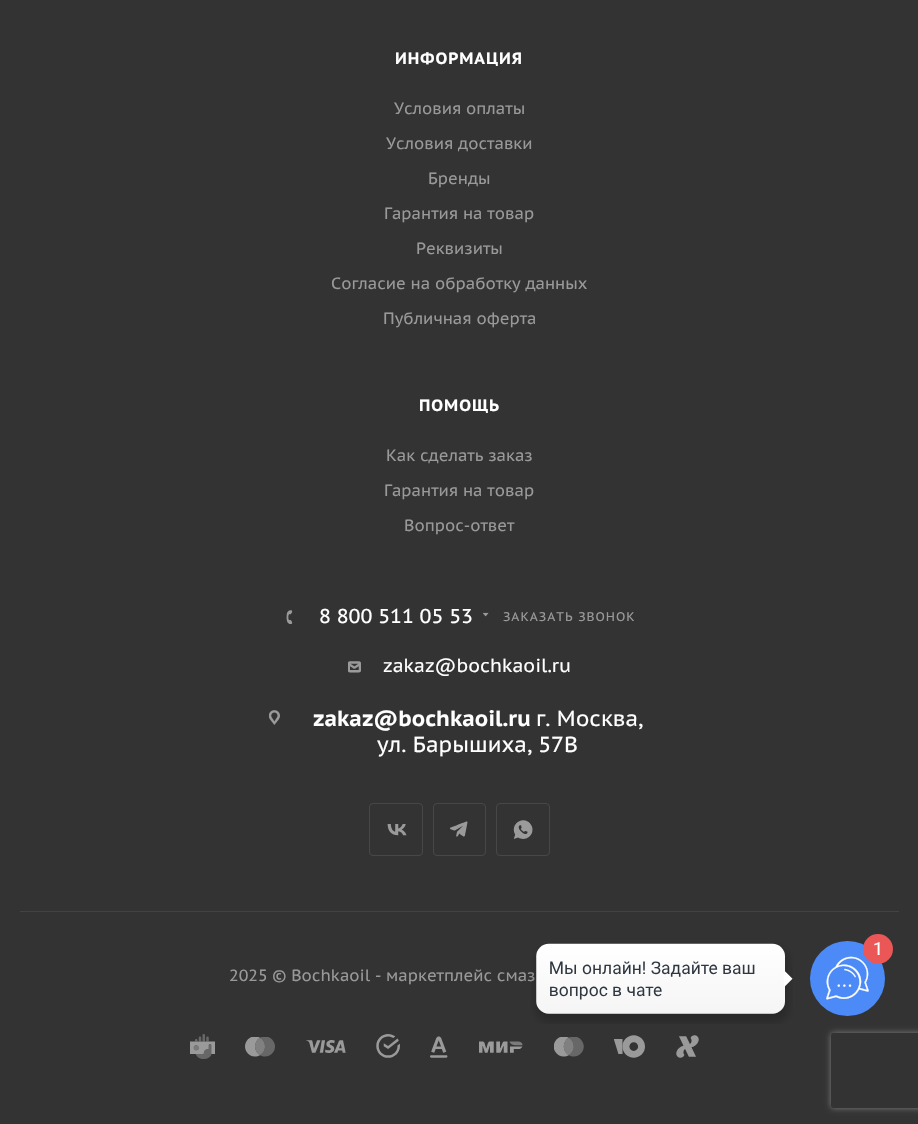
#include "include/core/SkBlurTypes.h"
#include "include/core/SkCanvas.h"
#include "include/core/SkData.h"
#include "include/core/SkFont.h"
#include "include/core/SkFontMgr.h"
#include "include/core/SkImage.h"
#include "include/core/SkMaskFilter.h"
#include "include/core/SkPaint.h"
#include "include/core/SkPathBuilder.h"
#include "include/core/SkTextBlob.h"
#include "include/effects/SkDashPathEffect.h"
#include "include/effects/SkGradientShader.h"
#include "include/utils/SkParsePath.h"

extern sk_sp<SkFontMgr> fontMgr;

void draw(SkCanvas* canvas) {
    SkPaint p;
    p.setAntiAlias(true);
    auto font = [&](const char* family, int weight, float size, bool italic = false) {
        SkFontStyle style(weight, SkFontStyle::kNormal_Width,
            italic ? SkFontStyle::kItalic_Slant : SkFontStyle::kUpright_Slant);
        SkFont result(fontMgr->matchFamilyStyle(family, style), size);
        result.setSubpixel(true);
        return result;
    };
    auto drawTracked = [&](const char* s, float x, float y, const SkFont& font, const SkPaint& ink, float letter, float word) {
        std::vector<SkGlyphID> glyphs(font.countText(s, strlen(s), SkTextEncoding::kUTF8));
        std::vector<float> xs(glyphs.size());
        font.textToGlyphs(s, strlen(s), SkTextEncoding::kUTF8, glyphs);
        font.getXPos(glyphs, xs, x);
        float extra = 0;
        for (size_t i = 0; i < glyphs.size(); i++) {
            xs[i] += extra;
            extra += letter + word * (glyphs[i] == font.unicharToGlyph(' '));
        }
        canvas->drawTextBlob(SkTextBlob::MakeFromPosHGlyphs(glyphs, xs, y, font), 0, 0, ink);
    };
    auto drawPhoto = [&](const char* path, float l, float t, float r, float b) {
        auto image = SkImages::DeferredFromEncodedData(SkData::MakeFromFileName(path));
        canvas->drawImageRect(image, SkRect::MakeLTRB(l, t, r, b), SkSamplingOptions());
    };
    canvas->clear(0xFF333333);
    auto font1 = font("PT Sans Caption", 700, 16.25f);
    p.setColor(0xFFFFFFFF);
    drawTracked("ИНФОРМАЦИЯ", 395, 64, font1, p, 1, 0);
    auto font2 = font("PT Sans Caption", 400, 16.25f);
    p.setColor(0xFF999999);
    {
        const struct { const char* s; float x, y; } items[] = {
            {"Условия оплаты", 394, 114},
            {"Условия доставки", 386, 149},
            {"Бренды", 428, 184},
            {"Гарантия на товар", 384, 219},
            {"Реквизиты", 416, 254},
            {"Согласие на обработку данных", 331, 289},
            {"Публичная оферта", 383, 324},
        };
        for (auto [s, x, y] : items) {
            canvas->drawString(s, x, y, font2, p);
        }
    }
    p.setColor(0xFFFFFFFF);
    drawTracked("ПОМОЩЬ", 419, 411, font1, p, 1, 0);
    p.setColor(0xFF999999);
    {
        const struct { const char* s; float x, y; } items[] = {
            {"Как сделать заказ", 386, 461},
            {"Гарантия на товар", 384, 496},
            {"Вопрос-ответ", 404, 531},
        };
        for (auto [s, x, y] : items) {
            canvas->drawString(s, x, y, font2, p);
        }
    }
    drawPhoto("media/1.png", 286, 610, 293, 624);
    auto font3 = font("PT Sans Caption", 400, 20);
    p.setColor(0xFFFFFFFF);
    canvas->drawString("8 800 511 05 53", 319, 623, font3, p);
    drawPhoto("media/2.png", 483, 612, 489, 617);
    auto font4 = font("PT Sans Caption", 400, 12.5f);
    p.setColor(0xFF999999);
    drawTracked("ЗАКАЗАТЬ ЗВОНОК", 503, 621, font4, p, 1, 0);
    drawPhoto("media/3.png", 348, 661, 361, 673);
    auto font5 = font("PT Sans Caption", 400, 18.75f);
    p.setColor(0xFFFFFFFF);
    canvas->drawString("zakaz@bochkaoil.ru", 383, 672, font5, p);
    drawPhoto("media/4.png", 269, 710, 280, 725);
    auto font6 = font("PT Sans Caption", 700, 21.75f);
    canvas->drawString("zakaz@bochkaoil.ru", 313, 726, font6, p);
    auto font7 = font("PT Sans Caption", 400, 21.75f);
    canvas->drawString("г. Москва,", 536, 726, font7, p);
    canvas->drawString("ул. Барышиха, 57В", 377, 752, font7, p);
    drawPhoto("media/5.png", 387, 824, 407, 836);
    p.setStyle(SkPaint::kStroke_Style);
    p.setStrokeWidth(1);
    p.setColor(0xFF474747);
    canvas->drawRoundRect(SkRect::MakeLTRB(369.5f, 803.5f, 422.5f, 855.5f), 3.5f, 3.5f, p);
    drawPhoto("media/6.png", 450, 821, 468, 837);
    canvas->drawRoundRect(SkRect::MakeLTRB(433.5f, 803.5f, 485.5f, 855.5f), 3.5f, 3.5f, p);
    drawPhoto("media/7.png", 513, 820, 533, 839);
    canvas->drawRoundRect(SkRect::MakeLTRB(496.5f, 803.5f, 549.5f, 855.5f), 3.5f, 3.5f, p);
    p.setStyle(SkPaint::kFill_Style);
    p.setColor(0xFF434343);
    canvas->drawRect(SkRect::MakeLTRB(20, 911, 899, 912), p);
    p.setColor(0xFF999999);
    canvas->drawString("2025 © Bochkaoil - маркетплейс смаз", 229, 981, font2, p);
    drawPhoto("media/8.png", 190, 1034, 215, 1059);
    drawPhoto("media/9.png", 245, 1037, 275, 1057);
    drawPhoto("media/10.png", 306, 1040, 346, 1053);
    drawPhoto("media/11.png", 376, 1034, 400, 1058);
    drawPhoto("media/12.png", 430, 1036, 448, 1058);
    drawPhoto("media/13.png", 479, 1041, 523, 1053);
    drawPhoto("media/14.png", 554, 1037, 584, 1057);
    drawPhoto("media/15.png", 614, 1035, 645, 1058);
    drawPhoto("media/16.png", 676, 1035, 699, 1058);
    p.setColor(0xFF4C8BF7);
    canvas->drawCircle(847.5f, 978.5f, 37.5f, p);
    drawPhoto("media/17.png", 530, 943, 793, 1024);
    drawPhoto("media/18.png", 826, 956, 869, 1000);
    p.setColor(0xFFEB5757);
    canvas->drawCircle(878, 949, 15, p);
    auto font8 = font("Roboto", 400, 18);
    p.setColor(0xFFFFFFFF);
    canvas->drawString("1", 873, 955, font8, p);
    canvas->save();
    canvas->clipPath(SkPathBuilder(SkPathFillType::kEvenOdd).moveTo(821, 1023).lineTo(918, 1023).lineTo(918, 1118).lineTo(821, 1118).close().moveTo(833.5f, 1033).lineTo(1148.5f, 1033).cubicTo(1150, 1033, 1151, 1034, 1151, 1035.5f).lineTo(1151, 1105.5f).cubicTo(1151, 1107, 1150, 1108, 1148.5f, 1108).lineTo(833.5f, 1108).cubicTo(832, 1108, 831, 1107, 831, 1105.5f).lineTo(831, 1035.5f).cubicTo(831, 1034, 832, 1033, 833.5f, 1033).close().detach(), true);
    p.setColor(0xFF808080);
    p.setMaskFilter(SkMaskFilter::MakeBlur(kNormal_SkBlurStyle, 3));
    canvas->drawRoundRect(SkRect::MakeLTRB(831, 1033, 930, 1108), 2.5f, 2.5f, p);
    p.setMaskFilter(nullptr);
    canvas->restore();
}
